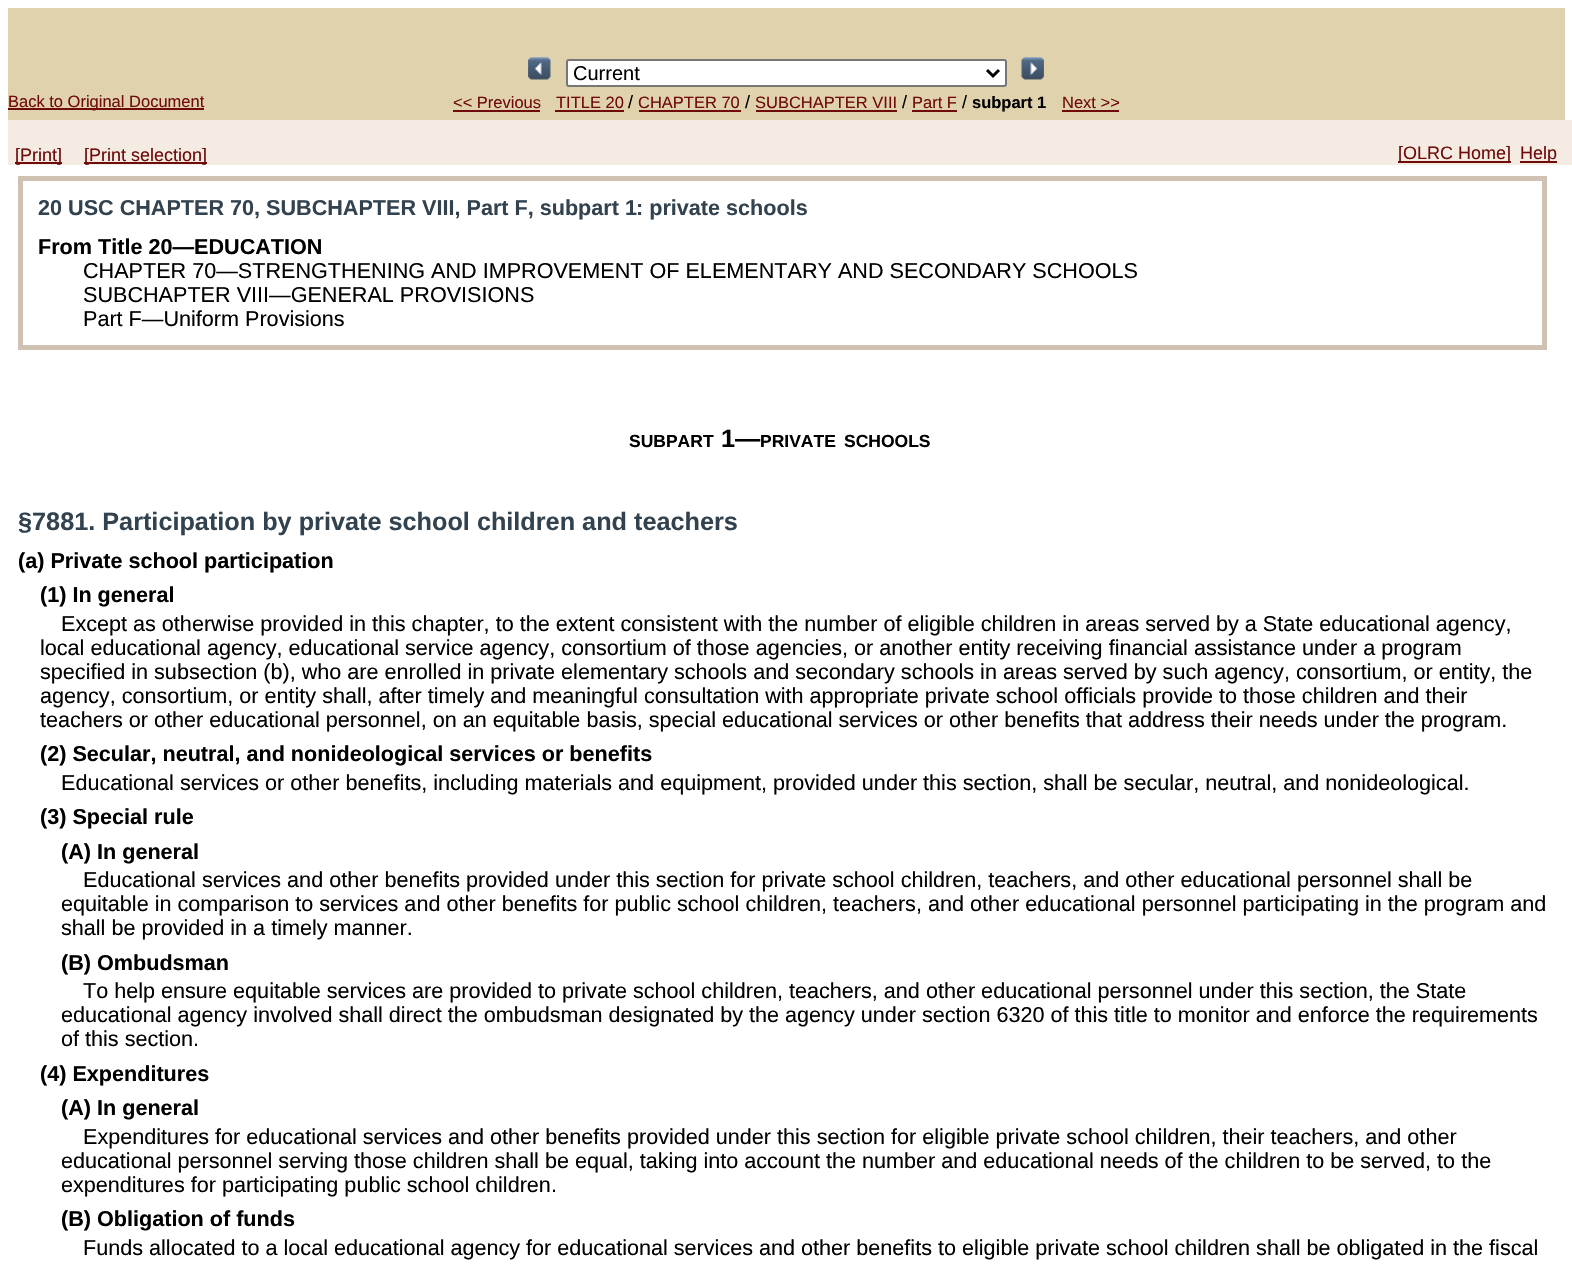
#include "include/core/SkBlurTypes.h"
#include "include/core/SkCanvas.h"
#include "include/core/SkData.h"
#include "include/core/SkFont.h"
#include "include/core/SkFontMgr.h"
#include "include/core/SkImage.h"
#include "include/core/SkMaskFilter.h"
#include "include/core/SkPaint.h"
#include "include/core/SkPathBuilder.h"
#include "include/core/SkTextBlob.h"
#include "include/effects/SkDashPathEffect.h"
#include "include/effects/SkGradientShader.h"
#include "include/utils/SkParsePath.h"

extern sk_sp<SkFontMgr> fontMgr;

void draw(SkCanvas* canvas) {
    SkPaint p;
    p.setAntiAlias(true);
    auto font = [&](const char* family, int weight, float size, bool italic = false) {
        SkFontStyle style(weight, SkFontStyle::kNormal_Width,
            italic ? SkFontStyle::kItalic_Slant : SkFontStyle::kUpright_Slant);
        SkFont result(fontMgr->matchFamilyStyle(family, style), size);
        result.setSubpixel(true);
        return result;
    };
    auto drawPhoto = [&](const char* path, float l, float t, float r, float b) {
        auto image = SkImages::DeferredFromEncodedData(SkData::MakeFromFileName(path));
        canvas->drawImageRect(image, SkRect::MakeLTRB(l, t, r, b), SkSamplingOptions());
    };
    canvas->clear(0xFFFFFFFF);
    p.setColor(0xFFE1D2AE);
    canvas->drawRect(SkRect::MakeLTRB(8, 8, 1565, 120), p);
    drawPhoto("media/1.png", 528, 57, 551, 80);
    p.setColor(0xFFFFFFFF);
    canvas->drawRoundRect(SkRect::MakeLTRB(567, 60, 1006, 86), 2, 2, p);
    p.setStyle(SkPaint::kStroke_Style);
    p.setStrokeWidth(2);
    p.setColor(0xFF767676);
    canvas->drawRoundRect(SkRect::MakeLTRB(567, 60, 1006, 86), 2, 2, p);
    p.setStrokeWidth(3);
    p.setColor(0xFF000000);
    canvas->drawPath(SkPathBuilder().moveTo(987, 70).lineTo(993, 76).lineTo(999, 70).detach(), p);
    auto font1 = font("Liberation Sans", 400, 20);
    p.setStyle(SkPaint::kFill_Style);
    canvas->drawString("Current", 573, 80, font1, p);
    drawPhoto("media/2.png", 1021, 57, 1044, 80);
    p.setColor(0xFF6F0B0B);
    canvas->drawRect(SkRect::MakeLTRB(8, 108, 204, 110), p);
    auto font2 = font("Liberation Sans", 400, 16.5f);
    canvas->drawString("Back to Original Document", 8, 107, font2, p);
    canvas->drawString("<< Previous", 453, 108, font2, p);
    canvas->drawRect(SkRect::MakeLTRB(453, 110, 540, 112), p);
    canvas->drawString("TITLE 20", 556, 108, font2, p);
    canvas->drawRect(SkRect::MakeLTRB(555, 110, 624, 112), p);
    auto font3 = font("Liberation Sans", 400, 18);
    p.setColor(0xFF000000);
    canvas->drawString("/", 628, 108, font3, p);
    p.setColor(0xFF6F0B0B);
    canvas->drawString("CHAPTER 70", 638, 108, font2, p);
    canvas->drawRect(SkRect::MakeLTRB(639, 110, 741, 112), p);
    p.setColor(0xFF000000);
    canvas->drawString("/", 745, 108, font3, p);
    p.setColor(0xFF6F0B0B);
    canvas->drawString("SUBCHAPTER VIII", 755, 108, font2, p);
    canvas->drawRect(SkRect::MakeLTRB(756, 110, 897, 112), p);
    p.setColor(0xFF000000);
    canvas->drawString("/", 902, 108, font3, p);
    p.setColor(0xFF6F0B0B);
    canvas->drawString("Part F", 912, 108, font2, p);
    canvas->drawRect(SkRect::MakeLTRB(912, 110, 957, 112), p);
    p.setColor(0xFF000000);
    canvas->drawString("/", 962, 108, font3, p);
    auto font4 = font("Liberation Sans", 700, 16.5f);
    canvas->drawString("subpart 1", 972, 108, font4, p);
    p.setColor(0xFF6F0B0B);
    canvas->drawString("Next >>", 1062, 108, font2, p);
    {
        const struct { float l, t, r, b; SkColor color; } items[] = {
            {1062, 110, 1119, 112, 0xFF6F0B0B},
            {8, 120, 1572, 165, 0xFFF4ECE2},
            {15, 162, 62, 164, 0xFF6F0B0B},
        };
        for (auto [l, t, r, b, color] : items) {
            p.setColor(color);
            canvas->drawRect(SkRect::MakeLTRB(l, t, r, b), p);
        }
    }
    canvas->drawString("[Print]", 15, 161, font3, p);
    canvas->drawRect(SkRect::MakeLTRB(84, 162, 207, 164), p);
    canvas->drawString("[Print selection]", 84, 161, font3, p);
    canvas->drawRect(SkRect::MakeLTRB(1398, 161, 1511, 163), p);
    canvas->drawString("[OLRC Home]", 1398, 159, font3, p);
    canvas->drawRect(SkRect::MakeLTRB(1520, 161, 1557, 163), p);
    canvas->drawString("Help", 1520, 159, font3, p);
    p.setStyle(SkPaint::kStroke_Style);
    p.setStrokeWidth(5);
    p.setColor(0xFFCFC2B2);
    canvas->drawRect(SkRect::MakeLTRB(20.5f, 178.5f, 1544.5f, 347.5f), p);
    auto font5 = font("Liberation Sans", 700, 21.6f);
    p.setStyle(SkPaint::kFill_Style);
    p.setColor(0xFF32434F);
    canvas->drawString("20 USC CHAPTER 70, SUBCHAPTER VIII, Part F, subpart 1", 38, 215, font5, p);
    canvas->drawString(": private schools", 636, 215, font5, p);
    p.setColor(0xFF000000);
    canvas->drawString("From Title 20—EDUCATION", 38, 254, font5, p);
    auto font6 = font("Liberation Sans", 400, 21.6f);
    {
        const struct { const char* s; float x, y; } items[] = {
            {"CHAPTER 70—STRENGTHENING AND IMPROVEMENT OF ELEMENTARY AND SECONDARY SCHOOLS", 83, 278},
            {"SUBCHAPTER VIII—GENERAL PROVISIONS", 83, 302},
            {"Part F—Uniform Provisions", 83, 326},
        };
        for (auto [s, x, y] : items) {
            canvas->drawString(s, x, y, font6, p);
        }
    }
    auto font7 = font("Liberation Sans", 700, 17.5f);
    canvas->drawString("SUBPART", 629, 447, font7, p);
    auto font8 = font("Liberation Sans", 700, 25.25f);
    canvas->drawString("1—", 721, 447, font8, p);
    canvas->drawString("PRIVATE", 760, 447, font7, p);
    canvas->drawString("SCHOOLS", 844, 447, font7, p);
    p.setColor(0xFF32434F);
    canvas->drawString("§7881. Participation by private school children and teachers", 18, 530, font8, p);
    p.setColor(0xFF000000);
    canvas->drawString("(a) Private school participation", 18, 568, font5, p);
    canvas->drawString("(1) In general", 40, 602, font5, p);
    {
        const struct { const char* s; float x, y; } items[] = {
            {"Except as otherwise provided in this chapter, to the extent consistent with the number of eligible children in areas served by a State educational agency,", 61, 631},
            {"local educational agency, educational service agency, consortium of those agencies, or another entity receiving financial assistance under a program", 40, 655},
            {"specified in subsection (b), who are enrolled in private elementary schools and secondary schools in areas served by such agency, consortium, or entity, the", 40, 679},
            {"agency, consortium, or entity shall, after timely and meaningful consultation with appropriate private school officials provide to those children and their", 40, 703},
            {"teachers or other educational personnel, on an equitable basis, special educational services or other benefits that address their needs under the program.", 40, 727},
        };
        for (auto [s, x, y] : items) {
            canvas->drawString(s, x, y, font6, p);
        }
    }
    canvas->drawString("(2) Secular, neutral, and nonideological services or benefits", 40, 761, font5, p);
    canvas->drawString("Educational services or other benefits, including materials and equipment, provided under this section, shall be secular, neutral, and nonideological.", 61, 790, font6, p);
    canvas->drawString("(3) Special rule", 40, 824, font5, p);
    canvas->drawString("(A) In general", 61, 859, font5, p);
    {
        const struct { const char* s; float x, y; } items[] = {
            {"Educational services and other benefits provided under this section for private school children, teachers, and other educational personnel shall be", 83, 887},
            {"equitable in comparison to services and other benefits for public school children, teachers, and other educational personnel participating in the program and", 61, 911},
            {"shall be provided in a timely manner.", 61, 935},
        };
        for (auto [s, x, y] : items) {
            canvas->drawString(s, x, y, font6, p);
        }
    }
    canvas->drawString("(B) Ombudsman", 61, 970, font5, p);
    {
        const struct { const char* s; float x, y; } items[] = {
            {"To help ensure equitable services are provided to private school children, teachers, and other educational personnel under this section, the State", 83, 998},
            {"educational agency involved shall direct the ombudsman designated by the agency under section 6320 of this title to monitor and enforce the requirements", 61, 1022},
            {"of this section.", 61, 1046},
        };
        for (auto [s, x, y] : items) {
            canvas->drawString(s, x, y, font6, p);
        }
    }
    canvas->drawString("(4) Expenditures", 40, 1081, font5, p);
    canvas->drawString("(A) In general", 61, 1115, font5, p);
    {
        const struct { const char* s; float x, y; } items[] = {
            {"Expenditures for educational services and other benefits provided under this section for eligible private school children, their teachers, and other", 83, 1144},
            {"educational personnel serving those children shall be equal, taking into account the number and educational needs of the children to be served, to the", 61, 1168},
            {"expenditures for participating public school children.", 61, 1192},
        };
        for (auto [s, x, y] : items) {
            canvas->drawString(s, x, y, font6, p);
        }
    }
    canvas->drawString("(B) Obligation of funds", 61, 1226, font5, p);
    canvas->drawString("Funds allocated to a local educational agency for educational services and other benefits to eligible private school children shall be obligated in the fiscal", 83, 1255, font6, p);
}
